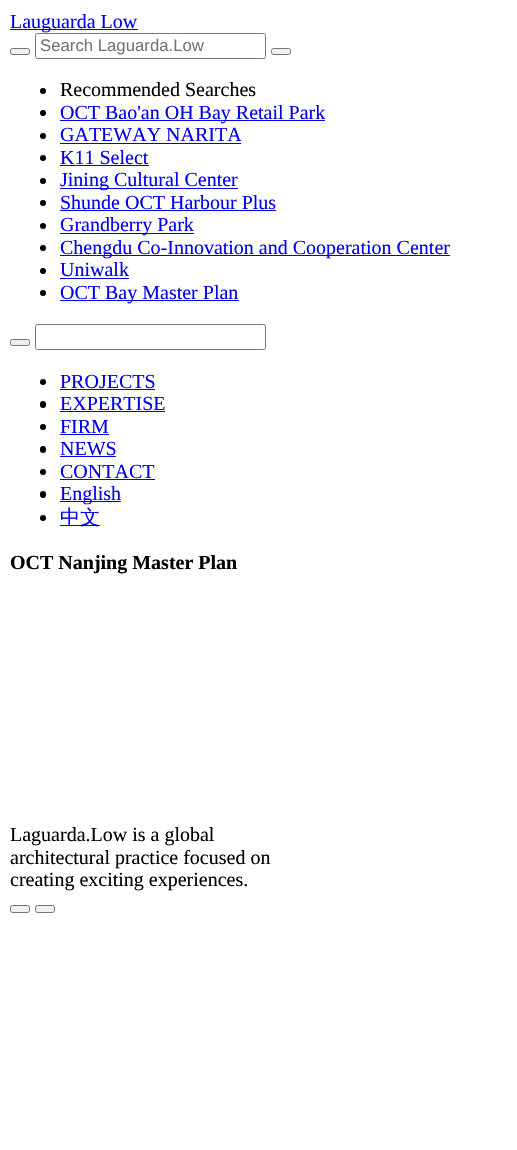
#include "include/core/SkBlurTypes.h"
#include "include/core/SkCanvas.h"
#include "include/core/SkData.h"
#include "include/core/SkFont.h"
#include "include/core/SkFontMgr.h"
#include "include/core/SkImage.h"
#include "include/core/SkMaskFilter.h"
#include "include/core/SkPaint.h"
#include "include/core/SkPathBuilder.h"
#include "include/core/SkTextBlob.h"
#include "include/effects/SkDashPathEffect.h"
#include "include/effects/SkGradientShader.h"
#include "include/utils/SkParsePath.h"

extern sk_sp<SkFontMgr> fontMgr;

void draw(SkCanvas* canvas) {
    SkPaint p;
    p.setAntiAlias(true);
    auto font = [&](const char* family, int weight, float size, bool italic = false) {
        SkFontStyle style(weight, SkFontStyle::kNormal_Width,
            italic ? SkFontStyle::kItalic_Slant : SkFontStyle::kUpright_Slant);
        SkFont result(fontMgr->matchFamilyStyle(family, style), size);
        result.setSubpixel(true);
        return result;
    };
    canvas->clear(0xFFFFFFFF);
    p.setColor(0xFF0000EE);
    canvas->drawRect(SkRect::MakeLTRB(10, 29, 138, 30), p);
    auto font1 = font("Liberation Serif", 400, 20);
    canvas->drawString("Lauguarda Low", 10, 28, font1, p);
    p.setColor(0xFFEFEFEF);
    canvas->drawRoundRect(SkRect::MakeLTRB(10.5f, 48.5f, 29.5f, 54.5f), 2, 2, p);
    p.setStyle(SkPaint::kStroke_Style);
    p.setStrokeWidth(1);
    p.setColor(0xFF767676);
    canvas->drawRoundRect(SkRect::MakeLTRB(10.5f, 48.5f, 29.5f, 54.5f), 2, 2, p);
    canvas->drawRoundRect(SkRect::MakeLTRB(35.5f, 33.5f, 265.5f, 58.5f), 2, 2, p);
    auto font2 = font("Liberation Sans", 400, 16.75f);
    p.setStyle(SkPaint::kFill_Style);
    p.setColor(0xFF757575);
    canvas->drawString("Search Laguarda.Low", 40, 51, font2, p);
    p.setColor(0xFFEFEFEF);
    canvas->drawRoundRect(SkRect::MakeLTRB(271.5f, 48.5f, 290.5f, 54.5f), 2, 2, p);
    p.setStyle(SkPaint::kStroke_Style);
    p.setColor(0xFF767676);
    canvas->drawRoundRect(SkRect::MakeLTRB(271.5f, 48.5f, 290.5f, 54.5f), 2, 2, p);
    p.setStyle(SkPaint::kFill_Style);
    p.setColor(0xFF000000);
    canvas->drawCircle(43, 91, 3, p);
    canvas->drawString("Recommended Searches", 60, 96, font1, p);
    canvas->drawCircle(43, 113, 3, p);
    p.setColor(0xFF0000EE);
    canvas->drawRect(SkRect::MakeLTRB(60, 120, 325, 121), p);
    canvas->drawString("OCT Bao'an OH Bay Retail Park", 60, 119, font1, p);
    p.setColor(0xFF000000);
    canvas->drawCircle(43, 136, 3, p);
    p.setColor(0xFF0000EE);
    canvas->drawString("GATEWAY NARITA", 60, 141, font1, p);
    canvas->drawRect(SkRect::MakeLTRB(60, 143, 241, 144), p);
    p.setColor(0xFF000000);
    canvas->drawCircle(43, 158, 3, p);
    p.setColor(0xFF0000EE);
    canvas->drawString("K11 Select", 60, 164, font1, p);
    canvas->drawRect(SkRect::MakeLTRB(60, 165, 149, 166), p);
    p.setColor(0xFF000000);
    canvas->drawCircle(43, 181, 3, p);
    p.setColor(0xFF0000EE);
    canvas->drawRect(SkRect::MakeLTRB(60, 188, 238, 189), p);
    canvas->drawString("Jining Cultural Center", 60, 186, font1, p);
    p.setColor(0xFF000000);
    canvas->drawCircle(43, 203, 3, p);
    p.setColor(0xFF0000EE);
    canvas->drawString("Shunde OCT Harbour Plus", 60, 209, font1, p);
    canvas->drawRect(SkRect::MakeLTRB(60, 210, 276, 211), p);
    p.setColor(0xFF000000);
    canvas->drawCircle(43, 226, 3, p);
    p.setColor(0xFF0000EE);
    canvas->drawRect(SkRect::MakeLTRB(60, 233, 194, 234), p);
    canvas->drawString("Grandberry Park", 60, 231, font1, p);
    p.setColor(0xFF000000);
    canvas->drawCircle(43, 248, 3, p);
    p.setColor(0xFF0000EE);
    canvas->drawRect(SkRect::MakeLTRB(60, 255, 450, 256), p);
    canvas->drawString("Chengdu Co-Innovation and Cooperation Center", 60, 254, font1, p);
    p.setColor(0xFF000000);
    canvas->drawCircle(43, 271, 3, p);
    p.setColor(0xFF0000EE);
    canvas->drawString("Uniwalk", 60, 276, font1, p);
    canvas->drawRect(SkRect::MakeLTRB(60, 278, 129, 279), p);
    p.setColor(0xFF000000);
    canvas->drawCircle(43, 293, 3, p);
    p.setColor(0xFF0000EE);
    canvas->drawRect(SkRect::MakeLTRB(60, 300, 239, 301), p);
    canvas->drawString("OCT Bay Master Plan", 60, 299, font1, p);
    p.setColor(0xFFEFEFEF);
    canvas->drawRoundRect(SkRect::MakeLTRB(10.5f, 339.5f, 29.5f, 345.5f), 2, 2, p);
    p.setStyle(SkPaint::kStroke_Style);
    p.setColor(0xFF767676);
    canvas->drawRoundRect(SkRect::MakeLTRB(10.5f, 339.5f, 29.5f, 345.5f), 2, 2, p);
    canvas->drawRoundRect(SkRect::MakeLTRB(35.5f, 324.5f, 265.5f, 349.5f), 2, 2, p);
    p.setStyle(SkPaint::kFill_Style);
    p.setColor(0xFF000000);
    canvas->drawCircle(43, 382, 3, p);
    p.setColor(0xFF0000EE);
    canvas->drawString("PROJECTS", 60, 388, font1, p);
    canvas->drawRect(SkRect::MakeLTRB(60, 389, 155, 390), p);
    p.setColor(0xFF000000);
    canvas->drawRoundRect(SkRect::MakeLTRB(40, 401, 46, 408), 3, 3, p);
    p.setColor(0xFF0000EE);
    canvas->drawString("EXPERTISE", 60, 410, font1, p);
    canvas->drawRect(SkRect::MakeLTRB(60, 411, 165, 412), p);
    p.setColor(0xFF000000);
    canvas->drawCircle(43, 427, 3, p);
    p.setColor(0xFF0000EE);
    canvas->drawString("FIRM", 60, 433, font1, p);
    canvas->drawRect(SkRect::MakeLTRB(60, 434, 109, 435), p);
    p.setColor(0xFF000000);
    canvas->drawRoundRect(SkRect::MakeLTRB(40, 446, 46, 453), 3, 3, p);
    p.setColor(0xFF0000EE);
    canvas->drawString("NEWS", 60, 455, font1, p);
    canvas->drawRect(SkRect::MakeLTRB(60, 456, 116, 457), p);
    p.setColor(0xFF000000);
    canvas->drawCircle(43, 472, 3, p);
    p.setColor(0xFF0000EE);
    canvas->drawString("CONTACT", 60, 478, font1, p);
    canvas->drawRect(SkRect::MakeLTRB(60, 479, 155, 480), p);
    p.setColor(0xFF000000);
    canvas->drawRoundRect(SkRect::MakeLTRB(40, 491, 46, 498), 3, 3, p);
    p.setColor(0xFF0000EE);
    canvas->drawRect(SkRect::MakeLTRB(60, 501, 121, 502), p);
    canvas->drawString("English", 60, 500, font1, p);
    p.setColor(0xFF000000);
    canvas->drawCircle(43, 518, 3, p);
    p.setColor(0xFF0000EE);
    canvas->drawRect(SkRect::MakeLTRB(60, 525, 100, 526), p);
    auto font3 = font("WenQuanYi Zen Hei", 500, 20);
    canvas->drawString("中文", 60, 524, font3, p);
    auto font4 = font("Liberation Serif", 700, 20);
    p.setColor(0xFF000000);
    canvas->drawString("OCT Nanjing Master Plan", 10, 569, font4, p);
    {
        const struct { const char* s; float x, y; } items[] = {
            {"Laguarda.Low is a global", 10, 841},
            {"architectural practice focused on", 10, 864},
            {"creating exciting experiences.", 10, 886},
        };
        for (auto [s, x, y] : items) {
            canvas->drawString(s, x, y, font1, p);
        }
    }
    p.setColor(0xFFEFEFEF);
    canvas->drawRoundRect(SkRect::MakeLTRB(10.5f, 905.5f, 29.5f, 912.5f), 2, 2, p);
    p.setStyle(SkPaint::kStroke_Style);
    p.setColor(0xFF767676);
    canvas->drawRoundRect(SkRect::MakeLTRB(10.5f, 905.5f, 29.5f, 912.5f), 2, 2, p);
    p.setStyle(SkPaint::kFill_Style);
    p.setColor(0xFFEFEFEF);
    canvas->drawRoundRect(SkRect::MakeLTRB(35.5f, 905.5f, 54.5f, 912.5f), 2, 2, p);
    p.setStyle(SkPaint::kStroke_Style);
    p.setColor(0xFF767676);
    canvas->drawRoundRect(SkRect::MakeLTRB(35.5f, 905.5f, 54.5f, 912.5f), 2, 2, p);
}
